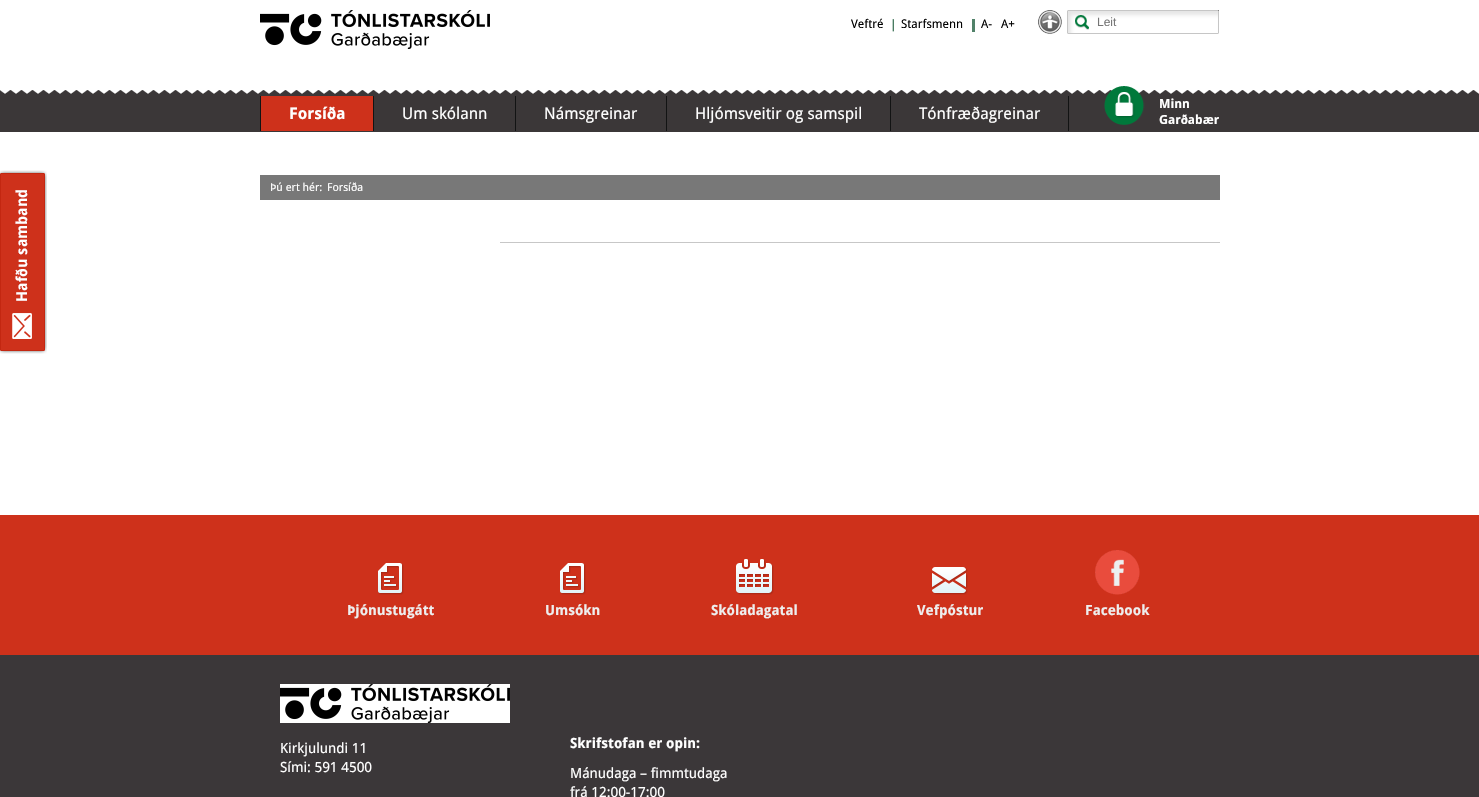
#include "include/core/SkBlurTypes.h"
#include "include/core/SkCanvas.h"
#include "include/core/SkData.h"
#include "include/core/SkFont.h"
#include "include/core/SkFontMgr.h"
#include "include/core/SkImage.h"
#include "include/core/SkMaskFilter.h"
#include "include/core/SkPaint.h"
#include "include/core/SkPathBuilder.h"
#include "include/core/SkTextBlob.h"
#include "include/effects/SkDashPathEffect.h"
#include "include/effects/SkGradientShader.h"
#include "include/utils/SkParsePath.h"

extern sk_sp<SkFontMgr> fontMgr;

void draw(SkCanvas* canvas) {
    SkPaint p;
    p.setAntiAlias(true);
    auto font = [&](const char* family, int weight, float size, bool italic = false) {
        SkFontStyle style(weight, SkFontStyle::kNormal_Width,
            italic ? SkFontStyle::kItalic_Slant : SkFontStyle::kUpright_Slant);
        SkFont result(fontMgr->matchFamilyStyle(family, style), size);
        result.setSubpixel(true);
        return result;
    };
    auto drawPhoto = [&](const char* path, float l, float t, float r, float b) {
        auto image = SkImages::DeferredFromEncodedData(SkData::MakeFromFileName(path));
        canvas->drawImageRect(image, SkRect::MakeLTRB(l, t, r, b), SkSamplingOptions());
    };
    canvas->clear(0xFFFFFFFF);
    drawPhoto("media/1.png", 260, 10, 490, 49);
    auto font1 = font("Droid Sans", 400, 12);
    p.setColor(0xFF000000);
    canvas->drawString("Veftré", 851, 28, font1, p);
    drawPhoto("media/2.png", 892, 19, 894, 32);
    canvas->drawString("Starfsmenn", 901, 28, font1, p);
    p.setColor(0xFF518269);
    canvas->drawRect(SkRect::MakeLTRB(972, 19, 975, 32), p);
    p.setColor(0xFF000000);
    canvas->drawString("A-", 981, 28, font1, p);
    canvas->drawString("A+", 1001, 28, font1, p);
    drawPhoto("media/3.png", 1038, 10, 1062, 34);
    drawPhoto("media/4.png", 1068, 10, 1219, 33);
    p.setStyle(SkPaint::kStroke_Style);
    p.setStrokeWidth(1);
    p.setColor(0xFFC6C6C6);
    canvas->drawRoundRect(SkRect::MakeLTRB(1067.5f, 10.5f, 1218.5f, 33.5f), 0.5f, 0.5f, p);
    auto font2 = font("Liberation Sans", 400, 12);
    p.setStyle(SkPaint::kFill_Style);
    p.setColor(0xFF757575);
    canvas->drawString("Leit", 1097, 26, font2, p);
    p.setColor(0xFF787878);
    canvas->drawRect(SkRect::MakeLTRB(260, 175, 1220, 200), p);
    auto font3 = font("Droid Sans", 400, 11);
    p.setColor(0xFFFFFFFF);
    canvas->drawString("Þú ert hér:", 270, 191, font3, p);
    canvas->drawString("Forsíða", 327, 191, font3, p);
    p.setColor(0xFFC7C7C7);
    canvas->drawRect(SkRect::MakeLTRB(500, 242, 1220, 243), p);
    drawPhoto("media/5.png", 0, 90, 1479, 132);
    {
        const struct { float l, t, r, b; SkColor color; } items[] = {
            {261, 96, 373, 131, 0xFFCE311B},
            {373, 96, 374, 131, 0xFF121313},
            {260, 96, 261, 131, 0xFF121313},
        };
        for (auto [l, t, r, b, color] : items) {
            p.setColor(color);
            canvas->drawRect(SkRect::MakeLTRB(l, t, r, b), p);
        }
    }
    auto font4 = font("Droid Sans", 700, 16);
    p.setColor(0xFFFFFFFF);
    canvas->drawString("Forsíða", 289, 119, font4, p);
    p.setColor(0xFF121313);
    canvas->drawRect(SkRect::MakeLTRB(515, 96, 516, 131), p);
    auto font5 = font("Droid Sans", 400, 16);
    p.setColor(0xFFFFFFFF);
    canvas->drawString("Um skólann", 402, 119, font5, p);
    p.setColor(0xFF121313);
    canvas->drawRect(SkRect::MakeLTRB(666, 96, 667, 131), p);
    p.setColor(0xFFFFFFFF);
    canvas->drawString("Námsgreinar", 544, 119, font5, p);
    p.setColor(0xFF121313);
    canvas->drawRect(SkRect::MakeLTRB(890, 96, 891, 131), p);
    p.setColor(0xFFFFFFFF);
    canvas->drawString("Hljómsveitir og samspil", 695, 119, font5, p);
    p.setColor(0xFF121313);
    canvas->drawRect(SkRect::MakeLTRB(1068, 96, 1069, 131), p);
    p.setColor(0xFFFFFFFF);
    canvas->drawString("Tónfræðagreinar", 919, 119, font5, p);
    drawPhoto("media/6.png", 1104, 86, 1145, 125);
    auto font6 = font("Droid Sans", 700, 12.5f);
    canvas->drawString("Minn", 1159, 108, font6, p);
    canvas->drawString("Garðabær", 1159, 124, font6, p);
    drawPhoto("media/7.png", 0, 170, 47, 354);
    p.setColor(0xFF3B3739);
    canvas->drawRect(SkRect::MakeLTRB(0, 655, 1479, 797), p);
    p.setColor(0xFFCE311B);
    canvas->drawRect(SkRect::MakeLTRB(0, 515, 1479, 655), p);
    drawPhoto("media/8.png", 378, 563, 404, 595);
    auto font7 = font("Droid Sans", 700, 14);
    p.setColor(0xFFEEEEEE);
    canvas->drawString("Þjónustugátt", 347, 615, font7, p);
    drawPhoto("media/8.png", 560, 563, 586, 595);
    canvas->drawString("Umsókn", 545, 615, font7, p);
    drawPhoto("media/9.png", 736, 559, 774, 595);
    canvas->drawString("Skóladagatal", 711, 615, font7, p);
    drawPhoto("media/10.png", 932, 567, 968, 595);
    canvas->drawString("Vefpóstur", 917, 615, font7, p);
    drawPhoto("media/11.png", 1095, 550, 1140, 595);
    canvas->drawString("Facebook", 1085, 615, font7, p);
    drawPhoto("media/1.png", 280, 684, 510, 723);
    auto font8 = font("Droid Sans", 400, 14);
    p.setColor(0xFFFFFFFF);
    canvas->drawString("Kirkjulundi 11", 280, 753, font8, p);
    canvas->drawString("Sími: 591 4500", 280, 772, font8, p);
    canvas->drawString("Skrifstofan er opin:", 570, 748, font7, p);
    canvas->drawString("Mánudaga – fimmtudaga", 570, 778, font8, p);
    canvas->drawString("frá 12:00-17:00", 570, 797, font8, p);
}
